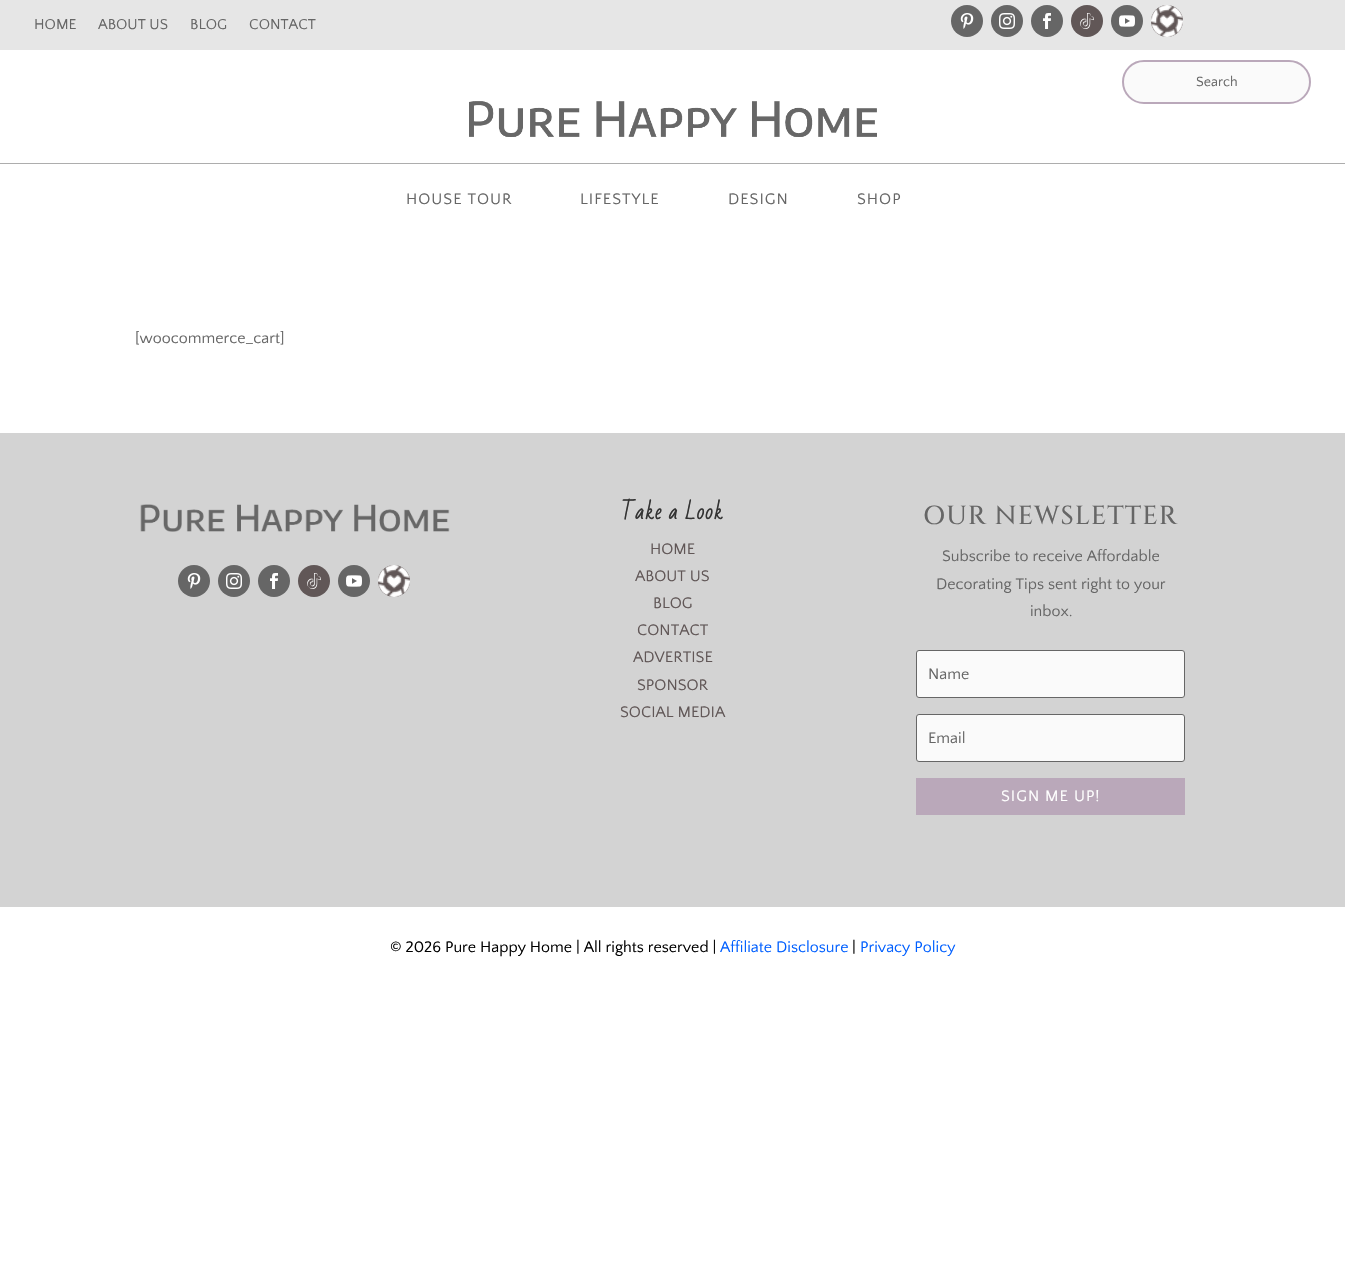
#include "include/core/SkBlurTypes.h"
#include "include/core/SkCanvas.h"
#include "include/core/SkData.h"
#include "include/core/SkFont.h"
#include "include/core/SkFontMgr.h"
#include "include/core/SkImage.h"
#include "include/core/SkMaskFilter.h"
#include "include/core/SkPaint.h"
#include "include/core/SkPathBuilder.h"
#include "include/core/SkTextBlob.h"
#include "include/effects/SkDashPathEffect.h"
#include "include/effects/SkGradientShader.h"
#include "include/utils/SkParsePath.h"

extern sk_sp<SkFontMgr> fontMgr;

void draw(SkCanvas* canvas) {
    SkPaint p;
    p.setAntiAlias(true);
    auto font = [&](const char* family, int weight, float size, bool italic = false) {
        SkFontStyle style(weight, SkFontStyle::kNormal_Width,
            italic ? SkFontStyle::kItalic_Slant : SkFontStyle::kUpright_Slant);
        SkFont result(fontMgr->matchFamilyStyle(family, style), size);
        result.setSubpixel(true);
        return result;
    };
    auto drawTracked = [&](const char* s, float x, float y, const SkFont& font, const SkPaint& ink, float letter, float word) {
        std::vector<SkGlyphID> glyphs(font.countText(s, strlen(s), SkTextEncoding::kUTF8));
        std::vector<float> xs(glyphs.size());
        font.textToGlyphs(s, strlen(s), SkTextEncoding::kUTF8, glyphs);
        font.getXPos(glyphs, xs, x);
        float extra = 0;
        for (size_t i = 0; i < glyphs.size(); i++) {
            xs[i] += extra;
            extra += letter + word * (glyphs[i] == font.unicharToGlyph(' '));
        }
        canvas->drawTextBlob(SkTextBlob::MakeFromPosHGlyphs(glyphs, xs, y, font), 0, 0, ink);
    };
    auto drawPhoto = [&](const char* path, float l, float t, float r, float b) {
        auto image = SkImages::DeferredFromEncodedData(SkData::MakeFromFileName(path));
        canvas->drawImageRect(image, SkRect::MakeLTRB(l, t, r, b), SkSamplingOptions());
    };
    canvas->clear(0xFFFFFFFF);
    p.setColor(0xFFE6E6E6);
    canvas->drawRect(SkRect::MakeLTRB(0, 0, 1345, 50), p);
    auto font1 = font("Quattrocento Sans", 400, 15);
    p.setColor(0xFF666666);
    {
        const struct { const char* s; float x, y; } items[] = {
            {"HOME", 34, 29},
            {"ABOUT US", 98, 29},
            {"BLOG", 190, 29},
            {"CONTACT", 249, 29},
        };
        for (auto [s, x, y] : items) {
            canvas->drawString(s, x, y, font1, p);
        }
    }
    canvas->drawCircle(967, 21, 16, p);
    drawPhoto("media/1.png", 960, 13, 974, 29);
    canvas->drawCircle(1007, 21, 16, p);
    drawPhoto("media/2.png", 999, 13, 1015, 29);
    canvas->drawCircle(1047, 21, 16, p);
    drawPhoto("media/3.png", 1043, 13, 1051, 29);
    p.setColor(0xFF615757);
    canvas->drawCircle(1087, 21, 16, p);
    drawPhoto("media/4.png", 1080, 13, 1094, 29);
    p.setColor(0xFF666666);
    canvas->drawCircle(1127, 21, 16, p);
    drawPhoto("media/5.png", 1119, 15, 1135, 27);
    p.setColor(0xFF615757);
    canvas->drawCircle(1167, 21, 16, p);
    drawPhoto("media/6.png", 1151, 5, 1183, 37);
    p.setColor(0xFFFAFAFA);
    canvas->drawRoundRect(SkRect::MakeLTRB(1123, 61, 1310, 103), 21, 21, p);
    p.setStyle(SkPaint::kStroke_Style);
    p.setStrokeWidth(2);
    p.setColor(0xFFBAA8BA);
    canvas->drawRoundRect(SkRect::MakeLTRB(1123, 61, 1310, 103), 21, 21, p);
    auto font2 = font("Quattrocento Sans", 400, 14);
    p.setStyle(SkPaint::kFill_Style);
    p.setColor(0xFF666666);
    canvas->drawString("Search", 1196, 86, font2, p);
    drawPhoto("media/7.png", 469, 101, 877, 137);
    p.setColor(0xFFADADAD);
    canvas->drawRect(SkRect::MakeLTRB(0, 163, 1345, 164), p);
    auto font3 = font("Quattrocento Sans", 400, 16);
    p.setColor(0xFF666666);
    {
        const struct { const char* s; float x, y; } items[] = {
            {"HOUSE TOUR", 406, 204},
            {"LIFESTYLE", 580, 204},
            {"DESIGN", 728, 204},
            {"SHOP", 857, 204},
        };
        for (auto [s, x, y] : items) {
            drawTracked(s, x, y, font3, p, 1, 0);
        }
    }
    canvas->drawString("[woocommerce_cart]", 135, 343, font3, p);
    p.setColor(0xFFD3D3D3);
    canvas->drawRect(SkRect::MakeLTRB(0, 433, 1345, 907), p);
    drawPhoto("media/8.png", 140, 504, 450, 532);
    p.setColor(0xFF666666);
    canvas->drawCircle(194, 581, 16, p);
    drawPhoto("media/1.png", 187, 573, 201, 589);
    canvas->drawCircle(234, 581, 16, p);
    drawPhoto("media/2.png", 226, 573, 242, 589);
    canvas->drawCircle(274, 581, 16, p);
    drawPhoto("media/3.png", 270, 573, 278, 589);
    p.setColor(0xFF615757);
    canvas->drawCircle(314, 581, 16, p);
    drawPhoto("media/4.png", 307, 573, 321, 589);
    p.setColor(0xFF666666);
    canvas->drawCircle(354, 581, 16, p);
    drawPhoto("media/5.png", 346, 575, 362, 587);
    p.setColor(0xFF615757);
    canvas->drawCircle(394, 581, 16, p);
    drawPhoto("media/9.png", 378, 565, 410, 597);
    auto font4 = font("Bad Script", 700, 20);
    p.setColor(0xFF333333);
    drawTracked("Take a Look", 621, 519, font4, p, 1, 0);
    p.setColor(0xFF615757);
    {
        const struct { const char* s; float x, y; } items[] = {
            {"HOME", 650, 554},
            {"ABOUT US", 635, 581},
            {"BLOG", 653, 608},
            {"CONTACT", 637, 635},
            {"ADVERTISE", 633, 662},
            {"SPONSOR", 637, 690},
            {"SOCIAL MEDIA", 620, 717},
        };
        for (auto [s, x, y] : items) {
            canvas->drawString(s, x, y, font3, p);
        }
    }
    auto font5 = font("Cinzel", 500, 26);
    p.setColor(0xFF666666);
    drawTracked("OUR NEWSLETTER", 923, 524, font5, p, 1, 0);
    {
        const struct { const char* s; float x, y; } items[] = {
            {"Subscribe to receive Affordable", 942, 561},
            {"Decorating Tips sent right to your", 936, 589},
            {"inbox.", 1030, 616},
        };
        for (auto [s, x, y] : items) {
            canvas->drawString(s, x, y, font3, p);
        }
    }
    p.setColor(0xFFFAFAFA);
    canvas->drawRoundRect(SkRect::MakeLTRB(916.5f, 650.5f, 1184.5f, 697.5f), 2.5f, 2.5f, p);
    p.setStyle(SkPaint::kStroke_Style);
    p.setStrokeWidth(1);
    p.setColor(0xFF666666);
    canvas->drawRoundRect(SkRect::MakeLTRB(916.5f, 650.5f, 1184.5f, 697.5f), 2.5f, 2.5f, p);
    p.setStyle(SkPaint::kFill_Style);
    canvas->drawString("Name", 928, 679, font3, p);
    p.setColor(0xFFFAFAFA);
    canvas->drawRoundRect(SkRect::MakeLTRB(916.5f, 714.5f, 1184.5f, 761.5f), 2.5f, 2.5f, p);
    p.setStyle(SkPaint::kStroke_Style);
    p.setColor(0xFF666666);
    canvas->drawRoundRect(SkRect::MakeLTRB(916.5f, 714.5f, 1184.5f, 761.5f), 2.5f, 2.5f, p);
    p.setStyle(SkPaint::kFill_Style);
    canvas->drawString("Email", 928, 743, font3, p);
    p.setColor(0xFFBAA8BA);
    canvas->drawRect(SkRect::MakeLTRB(916, 778, 1185, 815), p);
    p.setColor(0xFFFFFFFF);
    drawTracked("SIGN ME UP!", 1001, 801, font3, p, 1, 0);
    p.setColor(0xFF000000);
    canvas->drawString("© 2026 Pure Happy Home | All rights reserved |", 390, 952, font3, p);
    p.setColor(0xFF005FFF);
    canvas->drawString("Affiliate Disclosure", 720, 952, font3, p);
    p.setColor(0xFF000000);
    canvas->drawString("|", 852, 952, font3, p);
    p.setColor(0xFF005FFF);
    canvas->drawString("Privacy Policy", 860, 952, font3, p);
}
